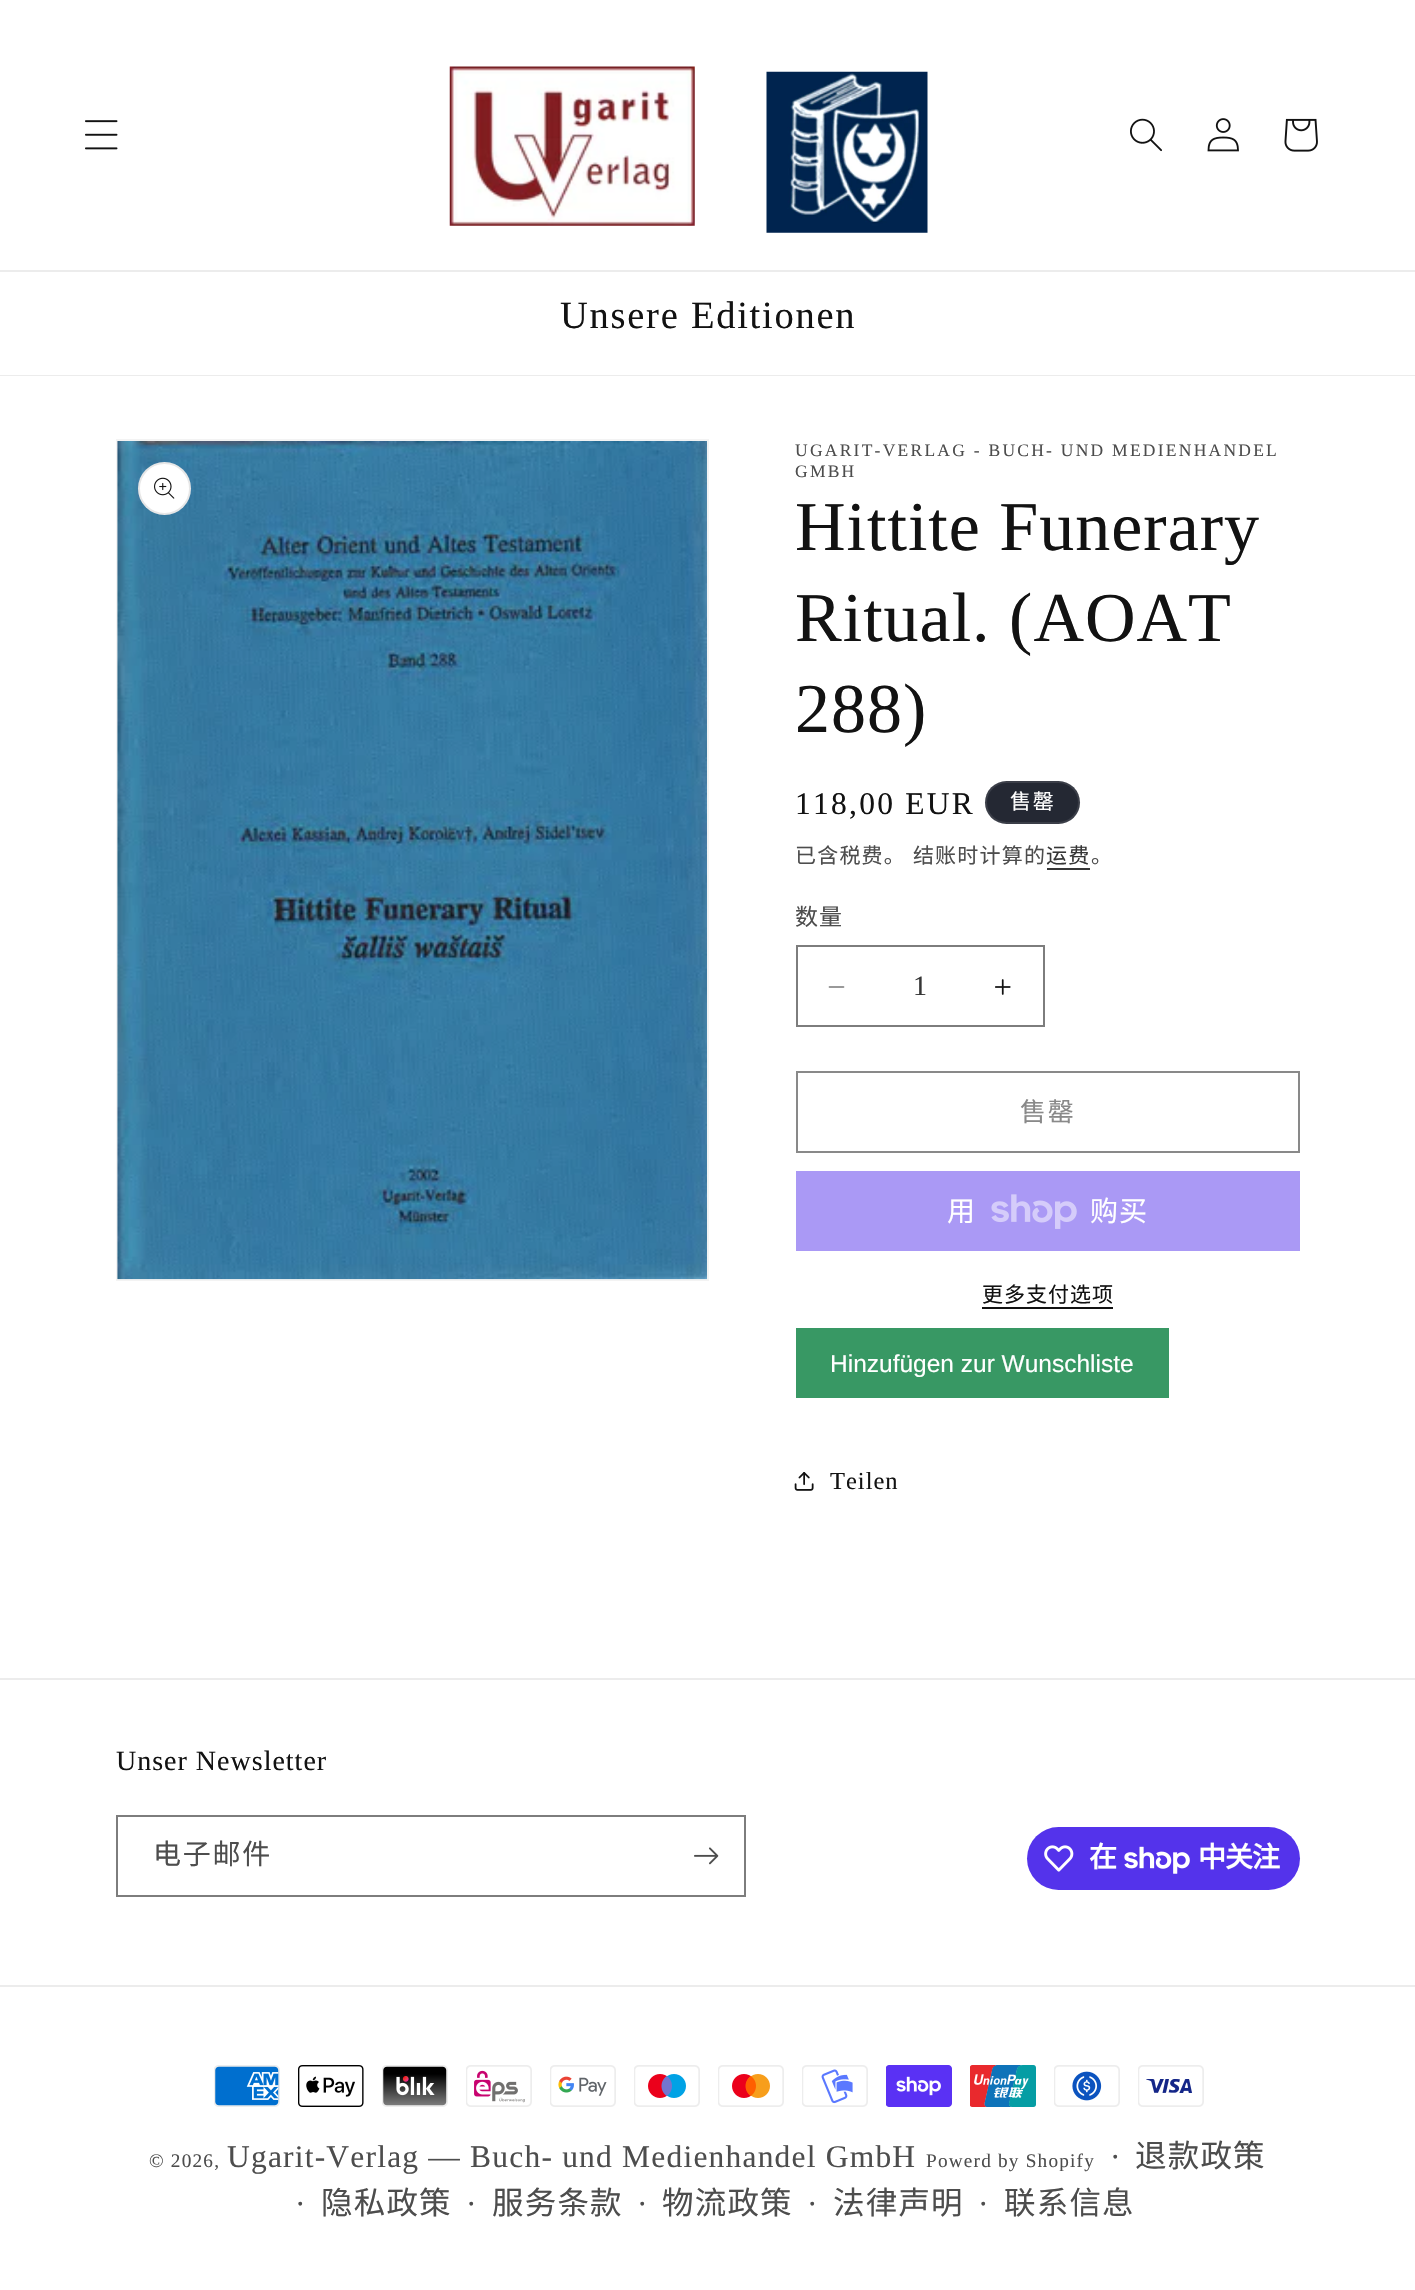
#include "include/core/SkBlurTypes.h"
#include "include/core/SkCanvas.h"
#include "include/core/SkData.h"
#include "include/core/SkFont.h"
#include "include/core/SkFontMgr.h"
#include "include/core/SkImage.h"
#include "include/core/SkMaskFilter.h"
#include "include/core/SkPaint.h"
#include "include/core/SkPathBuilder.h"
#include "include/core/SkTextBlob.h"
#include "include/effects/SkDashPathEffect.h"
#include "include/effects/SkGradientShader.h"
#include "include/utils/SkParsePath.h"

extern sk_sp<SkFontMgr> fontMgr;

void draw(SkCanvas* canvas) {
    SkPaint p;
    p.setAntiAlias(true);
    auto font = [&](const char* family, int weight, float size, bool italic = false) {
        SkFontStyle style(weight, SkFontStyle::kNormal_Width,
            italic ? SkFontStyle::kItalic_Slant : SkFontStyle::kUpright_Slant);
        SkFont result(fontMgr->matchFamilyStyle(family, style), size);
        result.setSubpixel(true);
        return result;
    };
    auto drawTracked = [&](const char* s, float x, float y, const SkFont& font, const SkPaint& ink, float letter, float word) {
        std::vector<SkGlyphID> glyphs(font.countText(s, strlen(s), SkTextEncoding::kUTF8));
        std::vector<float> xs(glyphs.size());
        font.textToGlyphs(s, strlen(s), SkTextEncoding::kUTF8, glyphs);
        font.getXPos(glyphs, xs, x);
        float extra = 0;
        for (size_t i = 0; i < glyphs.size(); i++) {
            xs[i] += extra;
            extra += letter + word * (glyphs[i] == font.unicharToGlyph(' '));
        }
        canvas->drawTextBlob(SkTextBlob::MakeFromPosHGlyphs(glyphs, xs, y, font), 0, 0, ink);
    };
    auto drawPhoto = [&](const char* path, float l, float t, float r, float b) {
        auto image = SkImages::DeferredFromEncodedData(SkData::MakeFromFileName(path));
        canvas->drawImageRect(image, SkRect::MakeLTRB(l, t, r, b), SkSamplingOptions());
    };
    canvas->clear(0xFFFFFFFF);
    p.setColor(0xFFECECEC);
    canvas->drawRect(SkRect::MakeLTRB(0, 270, 1415, 272), p);
    drawPhoto("media/1.png", 85, 120, 118, 150);
    drawPhoto("media/2.png", 449, 66, 695, 226);
    drawPhoto("media/3.png", 766, 71, 928, 233);
    drawPhoto("media/4.png", 1130, 118, 1162, 152);
    drawPhoto("media/5.png", 1207, 118, 1239, 152);
    drawPhoto("media/6.png", 1284, 118, 1318, 152);
    canvas->drawRect(SkRect::MakeLTRB(0, 375, 1415, 376), p);
    auto font1 = font("Liberation Serif", 400, 38.5f);
    p.setColor(0xFF121212);
    drawTracked("Unsere Editionen", 560, 328, font1, p, 1.75f, 0);
    p.setStyle(SkPaint::kStroke_Style);
    p.setStrokeWidth(2);
    p.setColor(0xFFF3F3F3);
    canvas->drawRect(SkRect::MakeLTRB(117, 440, 708, 1280), p);
    drawPhoto("media/7.png", 117, 441, 707, 1280);
    p.setStyle(SkPaint::kFill_Style);
    p.setColor(0xFFFFFFFF);
    canvas->drawCircle(164.5f, 488.5f, 26.5f, p);
    p.setStyle(SkPaint::kStroke_Style);
    p.setColor(0x1A121212);
    canvas->drawCircle(164.5f, 488.5f, 25.5f, p);
    drawPhoto("media/8.png", 154, 477, 175, 499);
    auto font2 = font("Liberation Serif", 400, 17.5f);
    p.setStyle(SkPaint::kFill_Style);
    p.setColor(0xFF4D4D4D);
    drawTracked("UGARIT-VERLAG - BUCH- UND MEDIENHANDEL", 795, 456, font2, p, 2.25f, 0);
    drawTracked("GMBH", 795, 477, font2, p, 2.25f, 0);
    auto font3 = font("Liberation Serif", 400, 70);
    p.setColor(0xFF121212);
    {
        const struct { const char* s; float x, y; } items[] = {
            {"Hittite Funerary", 795, 550},
            {"Ritual. (AOAT", 795, 641},
            {"288)", 795, 732},
        };
        for (auto [s, x, y] : items) {
            drawTracked(s, x, y, font3, p, 1, 0);
        }
    }
    auto font4 = font("Liberation Serif", 400, 31.5f);
    drawTracked("118,00 EUR", 795, 814, font4, p, 2.25f, 0);
    p.setColor(0xFF242833);
    canvas->drawRoundRect(SkRect::MakeLTRB(985, 781, 1080, 824), 21.5f, 21.5f, p);
    p.setStyle(SkPaint::kStroke_Style);
    p.setColor(0x1AFFFFFF);
    canvas->drawRoundRect(SkRect::MakeLTRB(986, 782, 1079, 823), 20.5f, 20.5f, p);
    auto font5 = font("Noto Sans CJK SC", 400, 21);
    p.setStyle(SkPaint::kFill_Style);
    p.setColor(0xFFFFFFFF);
    drawTracked("售罄", 1010, 809, font5, p, 1.75f, 0);
    p.setColor(0xFF4D4D4D);
    drawTracked("已含税费。 结账时计算的", 795, 863, font5, p, 1.2f, 1);
    p.setColor(0xFF363636);
    drawTracked("运费", 1046, 863, font5, p, 1.2f, 0);
    canvas->drawRect(SkRect::MakeLTRB(1047, 868, 1090, 870), p);
    p.setColor(0xFF4D4D4D);
    drawTracked("。", 1091, 863, font5, p, 1.2f, 0);
    auto font6 = font("Noto Sans CJK SC", 400, 23);
    drawTracked("数量", 795, 925, font6, p, 1, 0);
    drawPhoto("media/9.png", 828, 986, 845, 988);
    drawPhoto("media/10.png", 995, 979, 1011, 995);
    p.setStyle(SkPaint::kStroke_Style);
    p.setColor(0xFF7D7D7D);
    canvas->drawRect(SkRect::MakeLTRB(797, 946, 1044, 1026), p);
    auto font7 = font("Liberation Serif", 400, 28);
    p.setStyle(SkPaint::kFill_Style);
    p.setColor(0xFF363636);
    canvas->drawString("1", 913, 995, font7, p);
    p.setStyle(SkPaint::kStroke_Style);
    p.setColor(0xFF898989);
    canvas->drawRect(SkRect::MakeLTRB(797, 1072, 1299, 1152), p);
    auto font8 = font("Noto Sans CJK SC", 400, 26);
    p.setStyle(SkPaint::kFill_Style);
    drawTracked("售罄", 1020, 1121, font8, p, 1.75f, 0);
    p.setColor(0xFFAA99F5);
    canvas->drawRect(SkRect::MakeLTRB(796, 1171, 1300, 1251), p);
    auto font9 = font("Noto Sans CJK SC", 400, 28);
    p.setColor(0xFFFFFFFF);
    drawTracked("用", 947, 1221, font9, p, 1, 0);
    drawPhoto("media/11.png", 991, 1194, 1077, 1229);
    drawTracked("购买", 1090, 1221, font9, p, 1, 0);
    p.setColor(0xFF121212);
    drawTracked("更多支付选项", 982, 1302, font5, p, 1, 0);
    canvas->drawRect(SkRect::MakeLTRB(982, 1307, 1113, 1309), p);
    p.setColor(0xFF389864);
    canvas->drawRect(SkRect::MakeLTRB(796, 1328, 1169, 1398), p);
    auto font10 = font("Liberation Sans", 400, 24.5f);
    p.setColor(0xFFFFFFFF);
    canvas->drawString("Hinzufügen zur Wunschliste", 830, 1372, font10, p);
    drawPhoto("media/12.png", 794, 1472, 814, 1491);
    auto font11 = font("Liberation Serif", 400, 24.5f);
    p.setColor(0xFF121212);
    drawTracked("Teilen", 830, 1489, font11, p, 1, 0);
    p.setColor(0xFFECECEC);
    canvas->drawRect(SkRect::MakeLTRB(0, 1678, 1415, 1680), p);
    p.setColor(0xFF121212);
    drawTracked("Unser Newsletter", 116, 1770, font7, p, 1, 0);
    p.setStyle(SkPaint::kStroke_Style);
    p.setColor(0xFF7D7D7D);
    canvas->drawRect(SkRect::MakeLTRB(117, 1816, 745, 1896), p);
    p.setStyle(SkPaint::kFill_Style);
    p.setColor(0xFF4D4D4D);
    drawTracked("电子邮件", 153, 1864, font9, p, 1.75f, 0);
    drawPhoto("media/13.png", 694, 1847, 719, 1865);
    p.setColor(0xFF5433EB);
    canvas->drawRoundRect(SkRect::MakeLTRB(1027, 1827, 1300, 1890), 31.5f, 31.5f, p);
    drawPhoto("media/14.png", 1044, 1845, 1074, 1872);
    auto font12 = font("Noto Sans CJK SC", 700, 28);
    p.setColor(0xFFFFFFFF);
    drawTracked("在", 1089, 1867, font12, p, -1, 0);
    drawPhoto("media/15.png", 1124, 1846, 1190, 1874);
    drawTracked("中关注", 1198, 1867, font12, p, -1, 0);
    p.setColor(0xFFECECEC);
    canvas->drawRect(SkRect::MakeLTRB(0, 1985, 1415, 1987), p);
    drawPhoto("media/16.png", 214, 2065, 280, 2107);
    drawPhoto("media/17.png", 298, 2065, 364, 2107);
    drawPhoto("media/18.png", 382, 2065, 448, 2107);
    drawPhoto("media/19.png", 466, 2065, 532, 2107);
    drawPhoto("media/20.png", 550, 2065, 616, 2107);
    drawPhoto("media/21.png", 634, 2065, 700, 2107);
    drawPhoto("media/22.png", 718, 2065, 784, 2107);
    drawPhoto("media/23.png", 802, 2065, 868, 2107);
    drawPhoto("media/24.png", 886, 2065, 952, 2107);
    drawPhoto("media/25.png", 970, 2065, 1036, 2107);
    drawPhoto("media/26.png", 1054, 2065, 1120, 2107);
    drawPhoto("media/27.png", 1138, 2065, 1204, 2107);
    p.setColor(0xFF4D4D4D);
    drawTracked("·", 1110, 2167, font4, p, 1.2f, 0);
    auto font13 = font("Noto Sans CJK SC", 400, 31.5f);
    drawTracked("退款政策", 1135, 2167, font13, p, 1.2f, 0);
    drawTracked("·", 295, 2214, font4, p, 1.2f, 0);
    drawTracked("隐私政策", 321, 2214, font13, p, 1.2f, 0);
    drawTracked("·", 466, 2214, font4, p, 1.2f, 0);
    drawTracked("服务条款", 492, 2214, font13, p, 1.2f, 0);
    drawTracked("·", 637, 2214, font4, p, 1.2f, 0);
    drawTracked("物流政策", 662, 2214, font13, p, 1.2f, 0);
    drawTracked("·", 807, 2214, font4, p, 1.2f, 0);
    drawTracked("法律声明", 833, 2214, font13, p, 1.2f, 0);
    drawTracked("·", 978, 2214, font4, p, 1.2f, 0);
    drawTracked("联系信息", 1004, 2214, font13, p, 1.2f, 0);
    auto font14 = font("Liberation Serif", 400, 19.25f);
    drawTracked("© 2026,", 149, 2167, font14, p, 1.2f, 0);
    drawTracked("Ugarit-Verlag — Buch- und Medienhandel GmbH", 227, 2167, font4, p, 1.2f, 0);
    drawTracked("Powerd by Shopify", 926, 2167, font14, p, 1.2f, 0);
}
